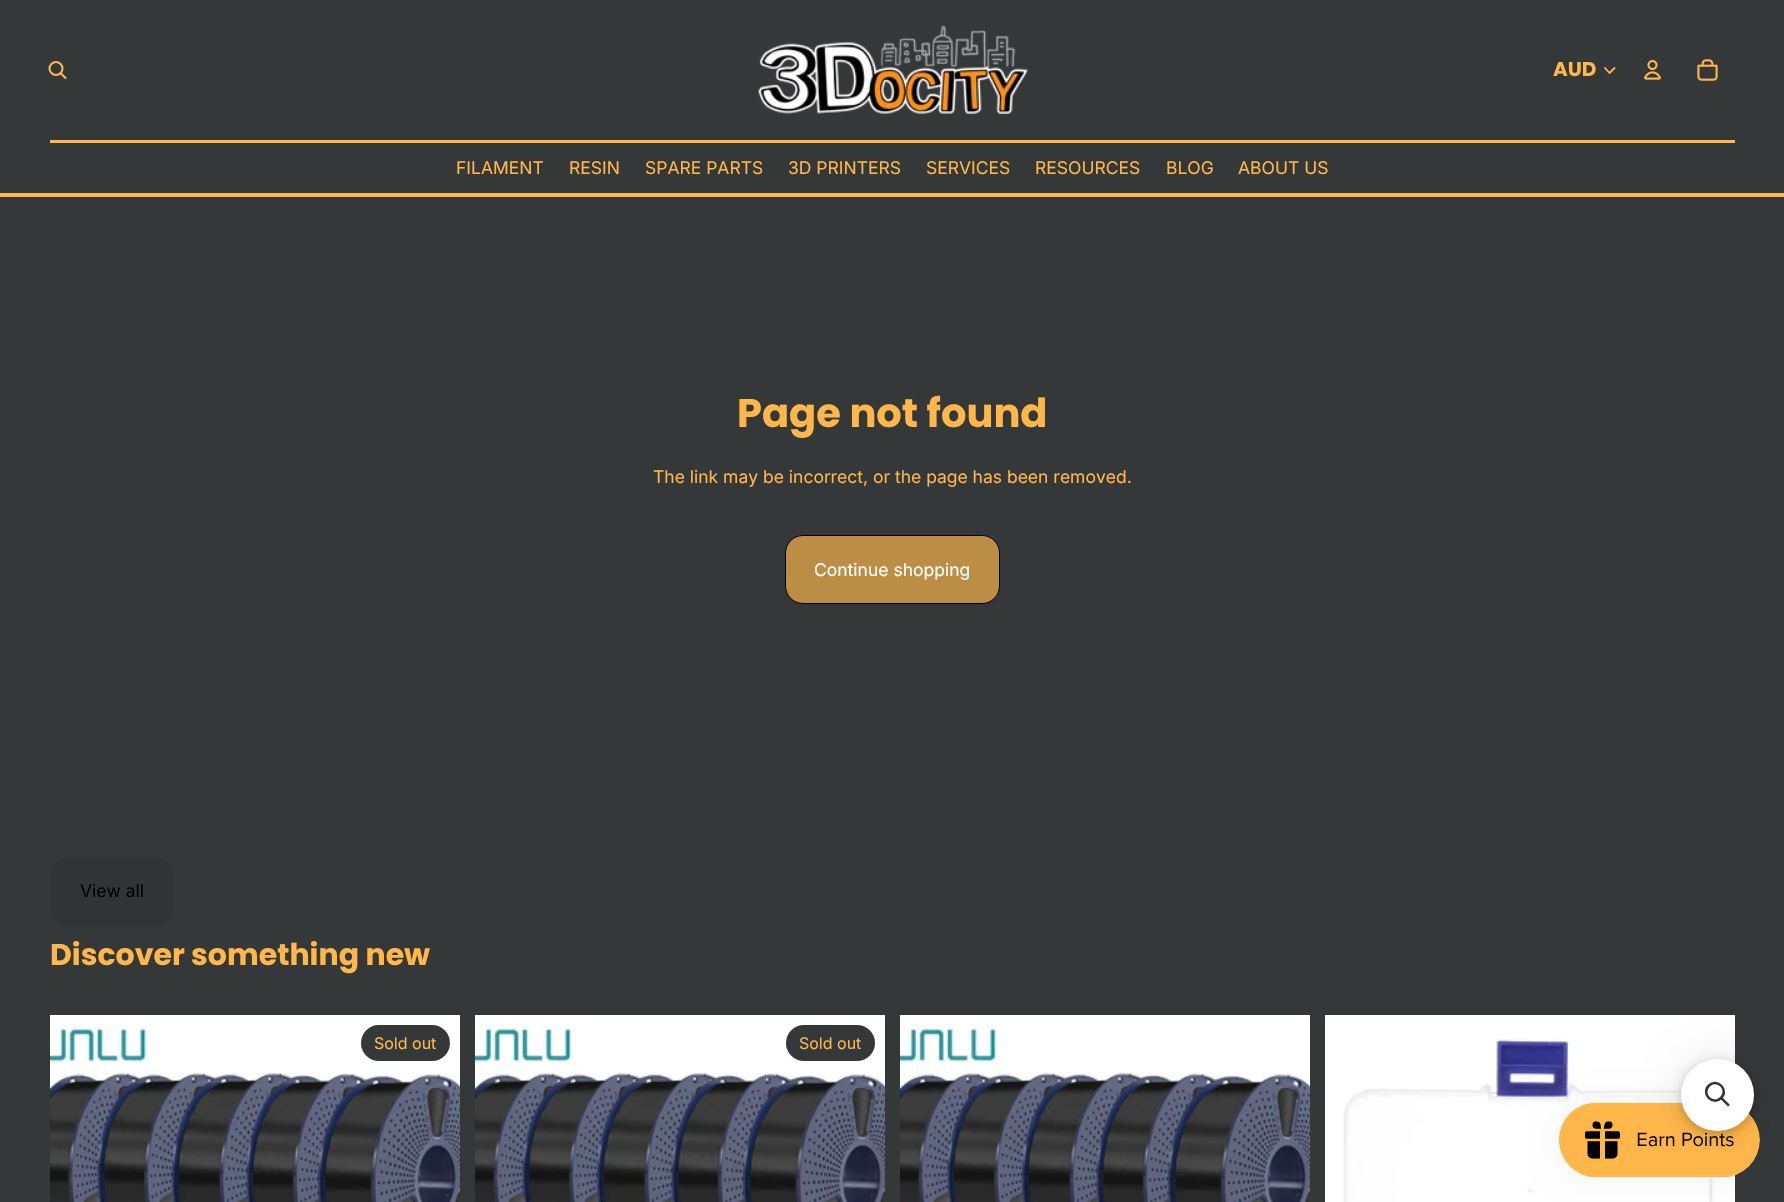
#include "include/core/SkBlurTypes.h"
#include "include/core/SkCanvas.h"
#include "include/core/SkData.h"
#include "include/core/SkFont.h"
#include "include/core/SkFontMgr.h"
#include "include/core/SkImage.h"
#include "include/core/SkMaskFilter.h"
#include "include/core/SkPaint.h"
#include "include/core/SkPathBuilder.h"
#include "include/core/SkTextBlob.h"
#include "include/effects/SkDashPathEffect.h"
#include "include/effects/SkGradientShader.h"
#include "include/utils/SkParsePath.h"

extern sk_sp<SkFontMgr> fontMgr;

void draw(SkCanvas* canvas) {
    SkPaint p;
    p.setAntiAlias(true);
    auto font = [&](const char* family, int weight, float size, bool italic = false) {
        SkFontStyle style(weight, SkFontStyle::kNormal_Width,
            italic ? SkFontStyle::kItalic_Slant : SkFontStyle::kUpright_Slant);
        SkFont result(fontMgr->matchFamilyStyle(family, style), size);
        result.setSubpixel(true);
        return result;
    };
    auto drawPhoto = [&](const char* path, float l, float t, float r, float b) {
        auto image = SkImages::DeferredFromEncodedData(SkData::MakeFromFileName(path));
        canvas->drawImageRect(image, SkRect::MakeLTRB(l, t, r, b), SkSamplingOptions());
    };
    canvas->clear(0xFF353839);
    p.setColor(0xFFFFB74A);
    canvas->drawRect(SkRect::MakeLTRB(50, 140, 1735, 143), p);
    p.setStyle(SkPaint::kStroke_Style);
    p.setStrokeWidth(2.1f);
    canvas->drawCircle(56, 68.5f, 6.5f, p);
    p.setStrokeCap(SkPaint::kRound_Cap);
    p.setStrokeJoin(SkPaint::kRound_Join);
    canvas->drawPath(SkPathBuilder().moveTo(61, 73.5f).lineTo(65.5f, 78).detach(), p);
    drawPhoto("media/1.png", 758, 26, 1028, 114);
    auto font1 = font("Poppins", 700, 20);
    p.setStyle(SkPaint::kFill_Style);
    canvas->drawString("AUD", 1553, 76, font1, p);
    p.setStyle(SkPaint::kStroke_Style);
    p.setStrokeWidth(1.8f);
    canvas->drawPath(SkPathBuilder().moveTo(1614.5f, 68).lineTo(1609.5f, 73).lineTo(1605, 68).detach(), p);
    drawPhoto("media/2.png", 1644, 59, 1661, 80);
    drawPhoto("media/3.png", 1697, 59, 1718, 81);
    p.setStyle(SkPaint::kFill_Style);
    canvas->drawRect(SkRect::MakeLTRB(0, 193, 1784, 197), p);
    auto font2 = font("Inter", 400, 17.5f);
    {
        const struct { const char* s; float x, y; } items[] = {
            {"FILAMENT", 456, 174},
            {"RESIN", 569, 174},
            {"SPARE PARTS", 645, 174},
            {"3D PRINTERS", 788, 174},
            {"SERVICES", 926, 174},
            {"RESOURCES", 1035, 174},
            {"BLOG", 1166, 174},
            {"ABOUT US", 1238, 174},
        };
        for (auto [s, x, y] : items) {
            canvas->drawString(s, x, y, font2, p);
        }
    }
    auto font3 = font("Poppins", 700, 40);
    canvas->drawString("Page not found", 737, 427, font3, p);
    canvas->drawString("The link may be incorrect, or the page has been removed.", 653, 483, font2, p);
    p.setColor(0xFFBC8D44);
    canvas->drawRoundRect(SkRect::MakeLTRB(785.5f, 535.5f, 999.5f, 603.5f), 17.5f, 17.5f, p);
    p.setStyle(SkPaint::kStroke_Style);
    p.setStrokeWidth(1);
    p.setStrokeCap(SkPaint::kButt_Cap);
    p.setStrokeJoin(SkPaint::kMiter_Join);
    p.setColor(0xFF000000);
    canvas->drawRoundRect(SkRect::MakeLTRB(785.5f, 535.5f, 999.5f, 603.5f), 17.5f, 17.5f, p);
    p.setStyle(SkPaint::kFill_Style);
    p.setColor(0xFFFFFFFF);
    canvas->drawString("Continue shopping", 814, 576, font2, p);
    p.setColor(0xFF323536);
    canvas->drawRoundRect(SkRect::MakeLTRB(50, 858, 174, 925), 18, 18, p);
    p.setColor(0xFF000000);
    canvas->drawString("View all", 80, 897, font2, p);
    auto font4 = font("Poppins", 700, 30);
    p.setColor(0xFFFFB74A);
    canvas->drawString("Discover something new", 50, 965, font4, p);
    drawPhoto("media/4.png", 50, 1015, 460, 1202);
    p.setColor(0xFF353839);
    canvas->drawRoundRect(SkRect::MakeLTRB(361, 1025, 450, 1061), 18, 18, p);
    auto font5 = font("Inter", 400, 16);
    p.setColor(0xFFFFB74A);
    canvas->drawString("Sold out", 374, 1049, font5, p);
    drawPhoto("media/4.png", 475, 1015, 885, 1202);
    p.setColor(0xFF353839);
    canvas->drawRoundRect(SkRect::MakeLTRB(786, 1025, 875, 1061), 18, 18, p);
    p.setColor(0xFFFFB74A);
    canvas->drawString("Sold out", 799, 1049, font5, p);
    drawPhoto("media/4.png", 900, 1015, 1310, 1202);
    drawPhoto("media/5.png", 1325, 1015, 1735, 1202);
    p.setColor(0x0D000000);
    p.setMaskFilter(SkMaskFilter::MakeBlur(kNormal_SkBlurStyle, 15.5f));
    canvas->drawRoundRect(SkRect::MakeLTRB(1559, 1103, 1760, 1178), 37.5f, 37.5f, p);
    p.setMaskFilter(nullptr);
    drawPhoto("media/6.png", 1559, 1102, 1760, 1178);
    p.setMaskFilter(SkMaskFilter::MakeBlur(kNormal_SkBlurStyle, 5));
    canvas->drawRoundRect(SkRect::MakeLTRB(1681, 1064, 1754, 1136), 36, 36, p);
    p.setMaskFilter(nullptr);
    p.setColor(0x26000000);
    p.setMaskFilter(SkMaskFilter::MakeBlur(kNormal_SkBlurStyle, 5));
    canvas->drawRoundRect(SkRect::MakeLTRB(1681, 1061, 1754, 1134), 36.5f, 36.5f, p);
    p.setMaskFilter(nullptr);
    p.setColor(0x1A000000);
    p.setMaskFilter(SkMaskFilter::MakeBlur(kNormal_SkBlurStyle, 19));
    canvas->drawRoundRect(SkRect::MakeLTRB(1681, 1059, 1754, 1131), 36, 36, p);
    p.setMaskFilter(nullptr);
    p.setColor(0xFFFFFFFF);
    canvas->drawRoundRect(SkRect::MakeLTRB(1681, 1059, 1754, 1131), 36, 36, p);
    p.setStyle(SkPaint::kStroke_Style);
    p.setStrokeWidth(2.5f);
    p.setColor(0xFF333333);
    canvas->drawPath(SkPathBuilder().moveTo(1709, 1085.5f).cubicTo(1717, 1077.5f, 1729.5f, 1090, 1721, 1098).cubicTo(1713, 1106, 1700.5f, 1094, 1709, 1085.5f).close().detach(), p);
    p.setStyle(SkPaint::kFill_Style);
    canvas->drawPath(SkPathBuilder().moveTo(1720.5f, 1099).lineTo(1722, 1097).lineTo(1729.5f, 1104.5f).cubicTo(1730, 1105.5f, 1728.5f, 1107, 1727.5f, 1106).close().detach(), p);
}
